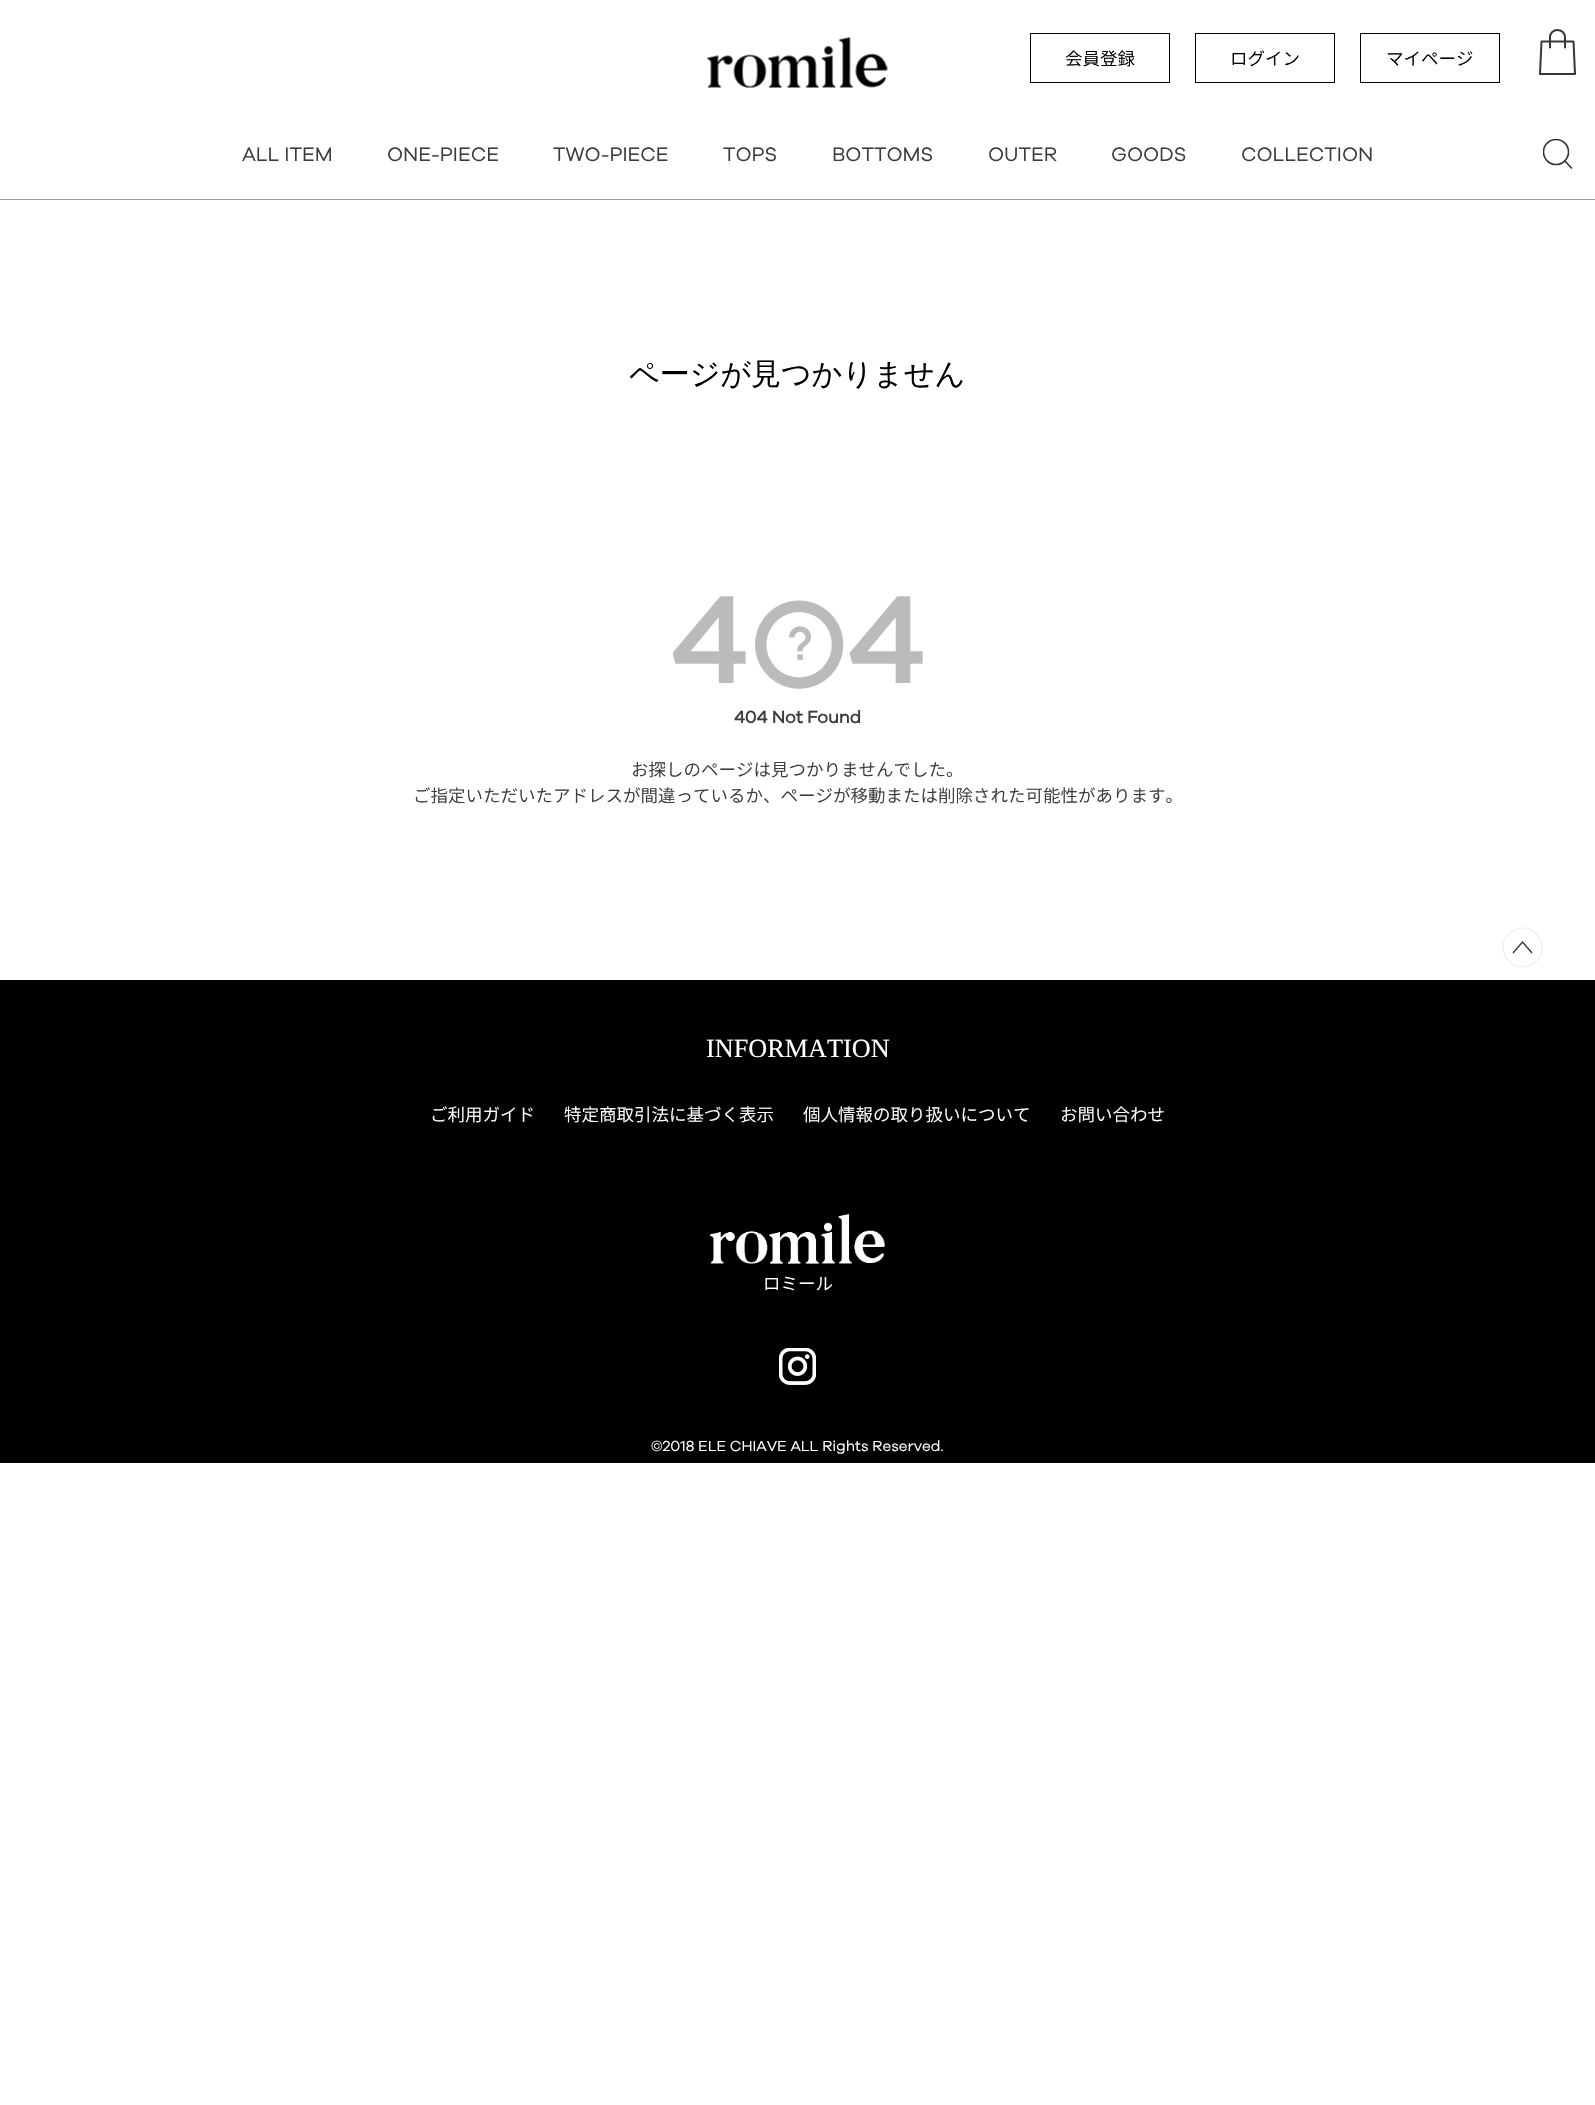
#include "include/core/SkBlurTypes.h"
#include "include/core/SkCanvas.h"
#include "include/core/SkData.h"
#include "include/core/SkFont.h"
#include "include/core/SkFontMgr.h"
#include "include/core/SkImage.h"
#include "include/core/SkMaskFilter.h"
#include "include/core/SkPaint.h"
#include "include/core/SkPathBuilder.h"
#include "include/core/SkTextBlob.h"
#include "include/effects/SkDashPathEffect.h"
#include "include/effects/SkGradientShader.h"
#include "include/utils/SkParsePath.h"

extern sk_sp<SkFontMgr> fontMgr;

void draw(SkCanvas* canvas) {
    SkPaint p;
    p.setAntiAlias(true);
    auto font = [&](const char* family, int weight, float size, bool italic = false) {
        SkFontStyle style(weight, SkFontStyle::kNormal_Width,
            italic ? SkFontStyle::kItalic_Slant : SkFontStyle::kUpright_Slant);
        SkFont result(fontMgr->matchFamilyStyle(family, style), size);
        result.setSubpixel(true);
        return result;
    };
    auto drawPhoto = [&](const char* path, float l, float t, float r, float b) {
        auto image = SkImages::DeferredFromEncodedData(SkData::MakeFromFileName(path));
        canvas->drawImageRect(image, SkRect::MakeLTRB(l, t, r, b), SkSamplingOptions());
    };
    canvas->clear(0xFFFFFFFF);
    drawPhoto("media/1.png", 707, 37, 888, 88);
    p.setStyle(SkPaint::kStroke_Style);
    p.setStrokeWidth(2);
    p.setStrokeCap(SkPaint::kRound_Cap);
    p.setStrokeJoin(SkPaint::kRound_Join);
    p.setColor(0xFF363636);
    canvas->drawPath(SkPathBuilder().moveTo(1575, 74).lineTo(1540, 74).lineTo(1541.5f, 41.5f).lineTo(1573.5f, 41.5f).close().moveTo(1550, 47.5f).lineTo(1550, 37).cubicTo(1550, 33, 1553.5f, 30, 1557.5f, 30).cubicTo(1561.5f, 30, 1565, 33, 1565, 37).lineTo(1565, 47.5f).detach(), p);
    p.setStrokeWidth(1);
    p.setStrokeCap(SkPaint::kButt_Cap);
    p.setStrokeJoin(SkPaint::kMiter_Join);
    p.setColor(0xFF000000);
    canvas->drawRect(SkRect::MakeLTRB(1030.5f, 33.5f, 1169.5f, 82.5f), p);
    auto font1 = font("Noto Sans JP", 300, 17.5f);
    p.setStyle(SkPaint::kFill_Style);
    canvas->drawString("会員登録", 1065, 65, font1, p);
    p.setStyle(SkPaint::kStroke_Style);
    canvas->drawRect(SkRect::MakeLTRB(1195.5f, 33.5f, 1334.5f, 82.5f), p);
    p.setStyle(SkPaint::kFill_Style);
    canvas->drawString("ログイン", 1230, 65, font1, p);
    p.setStyle(SkPaint::kStroke_Style);
    canvas->drawRect(SkRect::MakeLTRB(1360.5f, 33.5f, 1499.5f, 82.5f), p);
    p.setStyle(SkPaint::kFill_Style);
    canvas->drawString("マイページ", 1386, 65, font1, p);
    auto font2 = font("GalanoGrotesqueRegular", 400, 20);
    p.setColor(0xFF3C3C3C);
    {
        const struct { const char* s; float x, y; } items[] = {
            {"ALL ITEM", 242, 161},
            {"ONE-PIECE", 387, 161},
            {"TWO-PIECE", 553, 161},
            {"TOPS", 723, 161},
            {"BOTTOMS", 832, 161},
            {"OUTER", 988, 161},
            {"GOODS", 1111, 161},
            {"COLLECTION", 1241, 161},
        };
        for (auto [s, x, y] : items) {
            canvas->drawString(s, x, y, font2, p);
        }
    }
    p.setColor(0xFF999999);
    canvas->drawRect(SkRect::MakeLTRB(0, 199, 1595, 200), p);
    p.setStyle(SkPaint::kStroke_Style);
    p.setStrokeWidth(1.6f);
    p.setStrokeCap(SkPaint::kRound_Cap);
    p.setStrokeJoin(SkPaint::kRound_Join);
    p.setColor(0xFF333333);
    canvas->drawPath(SkPathBuilder().moveTo(1565, 161).lineTo(1571.5f, 168).detach(), p);
    canvas->save();
    canvas->clipRect(SkRect::MakeLTRB(1543, 139, 1573, 169));
    p.setStrokeCap(SkPaint::kButt_Cap);
    p.setStrokeJoin(SkPaint::kMiter_Join);
    canvas->drawCircle(1556, 152, 12.5f, p);
    canvas->restore();
    auto font3 = font("WenQuanYi Zen Hei", 500, 30);
    p.setStyle(SkPaint::kFill_Style);
    p.setColor(0xFF000000);
    canvas->drawString("ページが見つかりません", 629, 384, font3, p);
    drawPhoto("media/2.png", 673, 596, 923, 689);
    auto font4 = font("GalanoGrotesqueRegular", 700, 17.5f);
    p.setColor(0xFF3C3C3C);
    canvas->drawString("404 Not Found", 734, 723, font4, p);
    canvas->drawString("お探しのページは見つかりませんでした。", 631, 776, font1, p);
    canvas->drawString("ご指定いただいたアドレスが間違っているか、ページが移動または削除された可能性があります。", 413, 802, font1, p);
    canvas->save();
    canvas->clipPath(SkPathBuilder().moveTo(1532.5f, 941).lineTo(1532.5f, 953.5f).lineTo(1512.5f, 953.5f).lineTo(1512.5f, 941).close().detach(), true);
    p.setStyle(SkPaint::kStroke_Style);
    p.setStrokeWidth(1.3f);
    p.setStrokeCap(SkPaint::kRound_Cap);
    p.setStrokeJoin(SkPaint::kRound_Join);
    p.setColor(0xFF333333);
    canvas->drawPath(SkPathBuilder().moveTo(1532, 953).lineTo(1522.5f, 942).lineTo(1513, 953).detach(), p);
    canvas->restore();
    p.setStrokeWidth(1.2f);
    p.setStrokeCap(SkPaint::kButt_Cap);
    p.setStrokeJoin(SkPaint::kMiter_Join);
    p.setColor(0xFFEEEEEE);
    canvas->drawPath(SkPathBuilder().moveTo(1542, 947.5f).cubicTo(1542, 958, 1533, 967, 1522.5f, 967).cubicTo(1512, 967, 1503, 958, 1503, 947.5f).cubicTo(1503, 937, 1512, 928, 1522.5f, 928).cubicTo(1533, 928, 1542, 937, 1542, 947.5f).close().detach(), p);
    p.setStyle(SkPaint::kFill_Style);
    p.setColor(0xFF000000);
    canvas->drawRect(SkRect::MakeLTRB(0, 980, 1595, 1463), p);
    auto font5 = font("Liberation Serif", 400, 26.25f);
    p.setColor(0xFFFFFFFF);
    canvas->drawString("INFORMATION", 706, 1057, font5, p);
    {
        const struct { const char* s; float x, y; } items[] = {
            {"ご利用ガイド", 430, 1121},
            {"特定商取引法に基づく表示", 564, 1121},
            {"個人情報の取り扱いについて", 803, 1121},
            {"お問い合わせ", 1060, 1121},
        };
        for (auto [s, x, y] : items) {
            canvas->drawString(s, x, y, font1, p);
        }
    }
    drawPhoto("media/3.png", 710, 1213, 885, 1264);
    canvas->drawString("ロミール", 763, 1290, font1, p);
    drawPhoto("media/4.png", 779, 1348, 816, 1385);
    auto font6 = font("GalanoGrotesqueRegular", 400, 15);
    canvas->drawString("©2018 ELE CHIAVE ALL Rights Reserved.", 651, 1451, font6, p);
}
